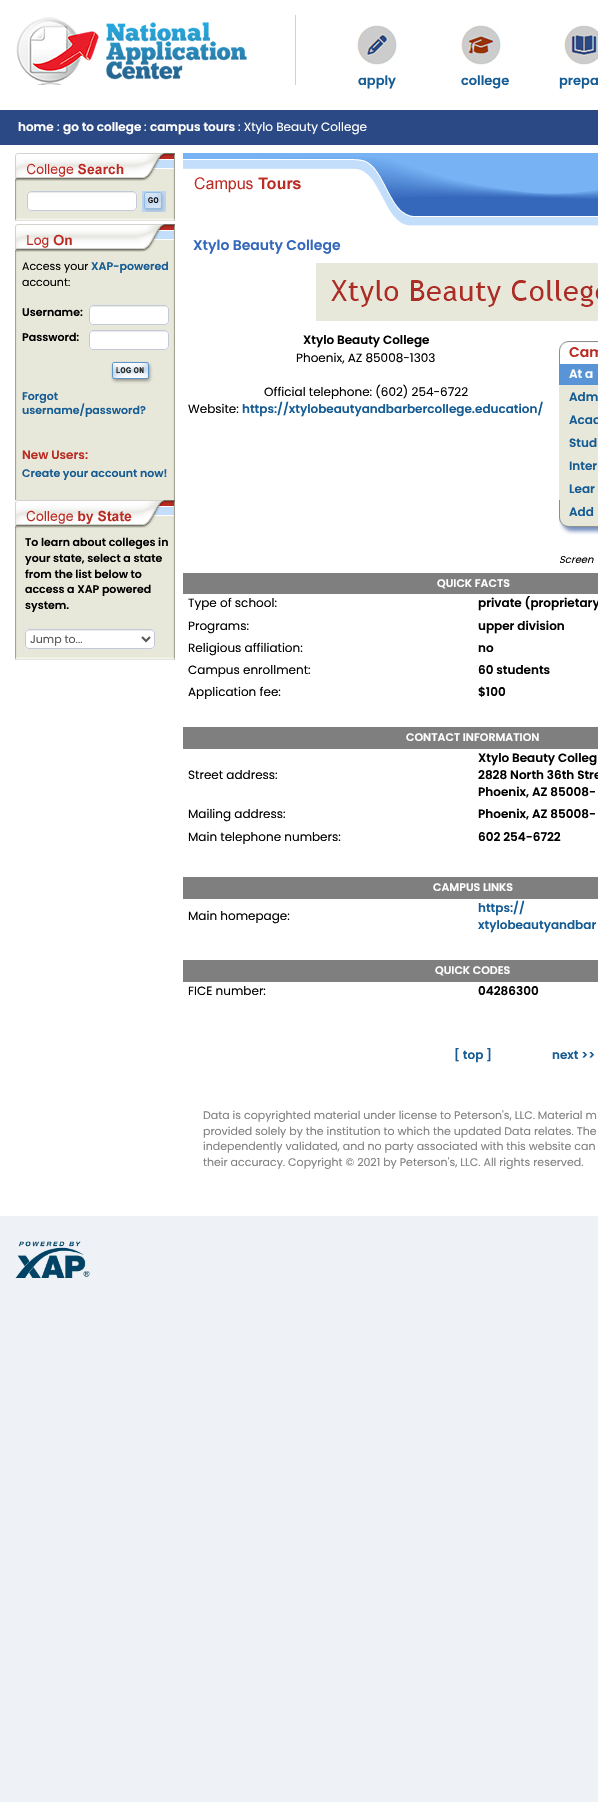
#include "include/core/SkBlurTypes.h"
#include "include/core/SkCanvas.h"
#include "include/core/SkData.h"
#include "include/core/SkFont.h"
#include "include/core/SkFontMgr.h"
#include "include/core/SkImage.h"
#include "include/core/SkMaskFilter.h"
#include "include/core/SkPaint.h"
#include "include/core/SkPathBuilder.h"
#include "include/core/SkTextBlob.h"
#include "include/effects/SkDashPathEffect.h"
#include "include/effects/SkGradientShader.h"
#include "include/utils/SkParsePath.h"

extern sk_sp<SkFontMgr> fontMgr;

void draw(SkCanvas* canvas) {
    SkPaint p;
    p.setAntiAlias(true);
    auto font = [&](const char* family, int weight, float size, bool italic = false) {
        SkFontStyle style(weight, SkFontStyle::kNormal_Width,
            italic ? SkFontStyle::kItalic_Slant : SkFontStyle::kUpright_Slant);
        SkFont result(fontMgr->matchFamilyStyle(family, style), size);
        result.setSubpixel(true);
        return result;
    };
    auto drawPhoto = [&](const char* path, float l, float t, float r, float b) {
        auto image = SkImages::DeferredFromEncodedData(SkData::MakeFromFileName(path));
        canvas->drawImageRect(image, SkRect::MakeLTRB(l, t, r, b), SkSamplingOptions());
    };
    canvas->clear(0xFFEEF1F5);
    p.setColor(0xFFFFFFFF);
    canvas->drawRect(SkRect::MakeLTRB(0, 0, 598, 1216), p);
    drawPhoto("media/1.png", 16, 17, 247, 85);
    p.setColor(0xFFD0D1DA);
    canvas->drawRect(SkRect::MakeLTRB(295, 15, 296, 85), p);
    drawPhoto("media/2.png", 357, 25, 397, 65);
    auto font1 = font("Poppins", 600, 13);
    p.setColor(0xFF165C94);
    canvas->drawString("apply", 358, 85, font1, p);
    drawPhoto("media/3.png", 461, 25, 501, 65);
    canvas->drawString("college", 461, 85, font1, p);
    drawPhoto("media/4.png", 564, 25, 598, 65);
    canvas->drawString("prepa", 559, 85, font1, p);
    p.setColor(0xFF2B4984);
    canvas->drawRect(SkRect::MakeLTRB(0, 110, 598, 145), p);
    auto font2 = font("Poppins", 600, 12);
    p.setColor(0xFFFFFFFF);
    canvas->drawString("home", 18, 131, font2, p);
    auto font3 = font("Poppins", 400, 12);
    canvas->drawString(":", 57, 131, font3, p);
    canvas->drawString("go to college", 63, 131, font2, p);
    canvas->drawString(":", 144, 131, font3, p);
    canvas->drawString("campus tours", 150, 131, font2, p);
    canvas->drawString(": Xtylo Beauty College", 238, 131, font3, p);
    drawPhoto("media/5.png", 15, 182, 175, 221);
    drawPhoto("media/6.png", 15, 153, 175, 182);
    canvas->drawRoundRect(SkRect::MakeLTRB(27, 191, 137, 211), 4, 4, p);
    p.setColor(0xFFEBEBEB);
    canvas->drawPath(SkPathBuilder().moveTo(31, 193).lineTo(133, 193).cubicTo(135, 193, 136, 194, 136, 196).cubicTo(136, 187, 118, 192, 116, 192).lineTo(48, 192).cubicTo(46, 192, 28, 187, 28, 196).cubicTo(28, 194, 29, 193, 31, 193).close().detach(), p);
    p.setStyle(SkPaint::kStroke_Style);
    p.setStrokeWidth(1);
    p.setColor(0xFFC2CAD8);
    canvas->drawRoundRect(SkRect::MakeLTRB(27.5f, 191.5f, 136.5f, 210.5f), 3.5f, 3.5f, p);
    drawPhoto("media/7.png", 142, 191, 166, 212);
    drawPhoto("media/8.png", 15, 240, 175, 500);
    drawPhoto("media/9.png", 15, 224, 175, 253);
    auto font4 = font("Poppins", 400, 11);
    p.setStyle(SkPaint::kFill_Style);
    p.setColor(0xFF000000);
    canvas->drawString("Access your", 22, 270, font4, p);
    auto font5 = font("Poppins", 600, 11);
    p.setColor(0xFF165C94);
    canvas->drawString("XAP-powered", 91, 270, font5, p);
    p.setColor(0xFF000000);
    canvas->drawString("account:", 22, 286, font4, p);
    canvas->drawString("Username:", 22, 316, font5, p);
    p.setColor(0xFFFFFFFF);
    canvas->drawRoundRect(SkRect::MakeLTRB(89, 305, 169, 325), 4, 4, p);
    p.setColor(0xFFEBEBEB);
    canvas->drawPath(SkPathBuilder().moveTo(93, 307).lineTo(165, 307).cubicTo(167, 307, 168, 308, 168, 310).cubicTo(168, 303, 157, 306, 153, 306).lineTo(105, 306).cubicTo(101, 306, 90, 303, 90, 310).cubicTo(90, 308, 91, 307, 93, 307).close().detach(), p);
    p.setStyle(SkPaint::kStroke_Style);
    p.setColor(0xFFC2CAD8);
    canvas->drawRoundRect(SkRect::MakeLTRB(89.5f, 305.5f, 168.5f, 324.5f), 3.5f, 3.5f, p);
    p.setStyle(SkPaint::kFill_Style);
    p.setColor(0xFF000000);
    canvas->drawString("Password:", 22, 341, font5, p);
    p.setColor(0xFFFFFFFF);
    canvas->drawRoundRect(SkRect::MakeLTRB(89, 330, 169, 350), 4, 4, p);
    p.setColor(0xFFEBEBEB);
    canvas->drawPath(SkPathBuilder().moveTo(93, 332).lineTo(165, 332).cubicTo(167, 332, 168, 333, 168, 335).cubicTo(168, 328, 157, 331, 153, 331).lineTo(105, 331).cubicTo(101, 331, 90, 328, 90, 335).cubicTo(90, 333, 91, 332, 93, 332).close().detach(), p);
    p.setStyle(SkPaint::kStroke_Style);
    p.setColor(0xFFC2CAD8);
    canvas->drawRoundRect(SkRect::MakeLTRB(89.5f, 330.5f, 168.5f, 349.5f), 3.5f, 3.5f, p);
    drawPhoto("media/10.png", 110, 361, 153, 384);
    p.setStyle(SkPaint::kFill_Style);
    p.setColor(0xFF165C94);
    canvas->drawString("Forgot", 22, 400, font5, p);
    canvas->drawString("username/password?", 22, 414, font5, p);
    p.setColor(0xFFBA2B22);
    canvas->drawString("New Users:", 22, 459, font2, p);
    p.setColor(0xFF165C94);
    canvas->drawString("Create your account now!", 22, 477, font5, p);
    drawPhoto("media/11.png", 15, 516, 175, 660);
    drawPhoto("media/12.png", 15, 500, 175, 529);
    p.setColor(0xFF000000);
    {
        const struct { const char* s; float x, y; } items[] = {
            {"To learn about colleges in", 25, 546},
            {"your state, select a state", 25, 562},
            {"from the list below to", 25, 578},
            {"access a XAP powered", 25, 593},
            {"system.", 25, 609},
        };
        for (auto [s, x, y] : items) {
            canvas->drawString(s, x, y, font5, p);
        }
    }
    p.setColor(0xFFFFFFFF);
    canvas->drawRoundRect(SkRect::MakeLTRB(25, 629, 155, 649), 4, 4, p);
    p.setColor(0xFFEBEBEB);
    canvas->drawPath(SkPathBuilder().moveTo(29, 631).lineTo(151, 631).cubicTo(153, 631, 154, 632, 154, 634).cubicTo(154, 632, 154, 630, 152, 630).lineTo(29, 630).cubicTo(27, 630, 26, 632, 26, 634).cubicTo(26, 632, 27, 631, 29, 631).close().detach(), p);
    p.setStyle(SkPaint::kStroke_Style);
    p.setColor(0xFFC2CAD8);
    canvas->drawRoundRect(SkRect::MakeLTRB(25.5f, 629.5f, 154.5f, 648.5f), 3.5f, 3.5f, p);
    p.setStrokeWidth(2);
    p.setColor(0xFF555555);
    canvas->drawPath(SkPathBuilder().moveTo(142, 637).lineTo(146, 641).lineTo(150, 637).detach(), p);
    p.setStyle(SkPaint::kFill_Style);
    canvas->drawString("Jump to...", 30, 643, font4, p);
    drawPhoto("media/13.png", 183, 153, 598, 226);
    auto font6 = font("Poppins", 600, 14);
    p.setColor(0xFF3567BB);
    canvas->drawString("Xtylo Beauty College", 193, 250, font6, p);
    drawPhoto("media/14.png", 316, 263, 598, 321);
    p.setColor(0xFF000000);
    canvas->drawString("Xtylo Beauty College", 303, 344, font2, p);
    {
        const struct { const char* s; float x, y; } items[] = {
            {"Phoenix, AZ 85008-1303", 296, 362},
            {"Official telephone: (602) 254-6722", 264, 396},
            {"Website:", 188, 413},
        };
        for (auto [s, x, y] : items) {
            canvas->drawString(s, x, y, font3, p);
        }
    }
    p.setColor(0xFF165C94);
    canvas->drawString("https://xtylobeautyandbarbercollege.education/", 242, 413, font2, p);
    drawPhoto("media/15.png", 559, 341, 598, 364);
    p.setColor(0xFFBA2B22);
    canvas->drawString("Cam", 569, 357, font6, p);
    p.setColor(0xFF5894D6);
    canvas->drawRect(SkRect::MakeLTRB(559, 364, 598, 385), p);
    p.setColor(0xFFFFFFFF);
    canvas->drawString("At a", 569, 378, font2, p);
    p.setColor(0xFFE8E8DA);
    canvas->drawRect(SkRect::MakeLTRB(559, 385, 598, 500), p);
    p.setColor(0xFF165C94);
    {
        const struct { const char* s; float x, y; } items[] = {
            {"Adm", 569, 401},
            {"Acad", 569, 424},
            {"Stud", 569, 447},
            {"Inter", 569, 470},
            {"Lear", 569, 493},
        };
        for (auto [s, x, y] : items) {
            canvas->drawString(s, x, y, font2, p);
        }
    }
    drawPhoto("media/16.png", 559, 500, 598, 535);
    canvas->drawString("Add", 569, 516, font2, p);
    auto font7 = font("Poppins", 400, 10, true);
    p.setColor(0xFF000000);
    canvas->drawString("Screen", 559, 563, font7, p);
    p.setColor(0xFF7F7F7F);
    canvas->drawRect(SkRect::MakeLTRB(183, 573, 598, 594), p);
    p.setColor(0xFFFFFFFF);
    canvas->drawString("QUICK FACTS", 437, 587, font5, p);
    p.setColor(0xFF000000);
    canvas->drawString("Type of school:", 188, 607, font3, p);
    canvas->drawString("private (proprietary", 478, 607, font2, p);
    canvas->drawString("Programs:", 188, 630, font3, p);
    canvas->drawString("upper division", 478, 630, font2, p);
    canvas->drawString("Religious affiliation:", 188, 652, font3, p);
    canvas->drawString("no", 478, 652, font2, p);
    canvas->drawString("Campus enrollment:", 188, 674, font3, p);
    canvas->drawString("60 students", 478, 674, font2, p);
    canvas->drawString("Application fee:", 188, 696, font3, p);
    canvas->drawString("$100", 478, 696, font2, p);
    p.setColor(0xFF7F7F7F);
    canvas->drawRect(SkRect::MakeLTRB(183, 727, 598, 749), p);
    p.setColor(0xFFFFFFFF);
    canvas->drawString("CONTACT INFORMATION", 406, 741, font5, p);
    p.setColor(0xFF000000);
    canvas->drawString("Street address:", 188, 779, font3, p);
    {
        const struct { const char* s; float x, y; } items[] = {
            {"Xtylo Beauty Colleg", 478, 762},
            {"2828 North 36th Stre", 478, 779},
            {"Phoenix, AZ 85008-", 478, 796},
        };
        for (auto [s, x, y] : items) {
            canvas->drawString(s, x, y, font2, p);
        }
    }
    canvas->drawString("Mailing address:", 188, 818, font3, p);
    canvas->drawString("Phoenix, AZ 85008-", 478, 818, font2, p);
    canvas->drawString("Main telephone numbers:", 188, 841, font3, p);
    canvas->drawString("602 254-6722", 478, 841, font2, p);
    p.setColor(0xFF7F7F7F);
    canvas->drawRect(SkRect::MakeLTRB(183, 877, 598, 899), p);
    p.setColor(0xFFFFFFFF);
    canvas->drawString("CAMPUS LINKS", 433, 891, font5, p);
    p.setColor(0xFF000000);
    canvas->drawString("Main homepage:", 188, 920, font3, p);
    p.setColor(0xFF165C94);
    canvas->drawString("https://", 478, 912, font2, p);
    canvas->drawString("xtylobeautyandbar", 478, 929, font2, p);
    p.setColor(0xFF7F7F7F);
    canvas->drawRect(SkRect::MakeLTRB(183, 960, 598, 982), p);
    p.setColor(0xFFFFFFFF);
    canvas->drawString("QUICK CODES", 435, 974, font5, p);
    p.setColor(0xFF000000);
    canvas->drawString("FICE number:", 188, 995, font3, p);
    canvas->drawString("04286300", 478, 995, font2, p);
    p.setColor(0xFF165C94);
    canvas->drawString("[ top ]", 454, 1059, font2, p);
    canvas->drawString("next >>", 552, 1059, font2, p);
    p.setColor(0xFF808080);
    {
        const struct { const char* s; float x, y; } items[] = {
            {"Data is copyrighted material under license to Peterson's, LLC. Material m", 203, 1119},
            {"provided solely by the institution to which the updated Data relates. The", 203, 1135},
            {"independently validated, and no party associated with this website can", 203, 1150},
            {"their accuracy. Copyright © 2021 by Peterson's, LLC. All rights reserved.", 203, 1166},
        };
        for (auto [s, x, y] : items) {
            canvas->drawString(s, x, y, font4, p);
        }
    }
    drawPhoto("media/17.png", 15, 1241, 90, 1278);
}
